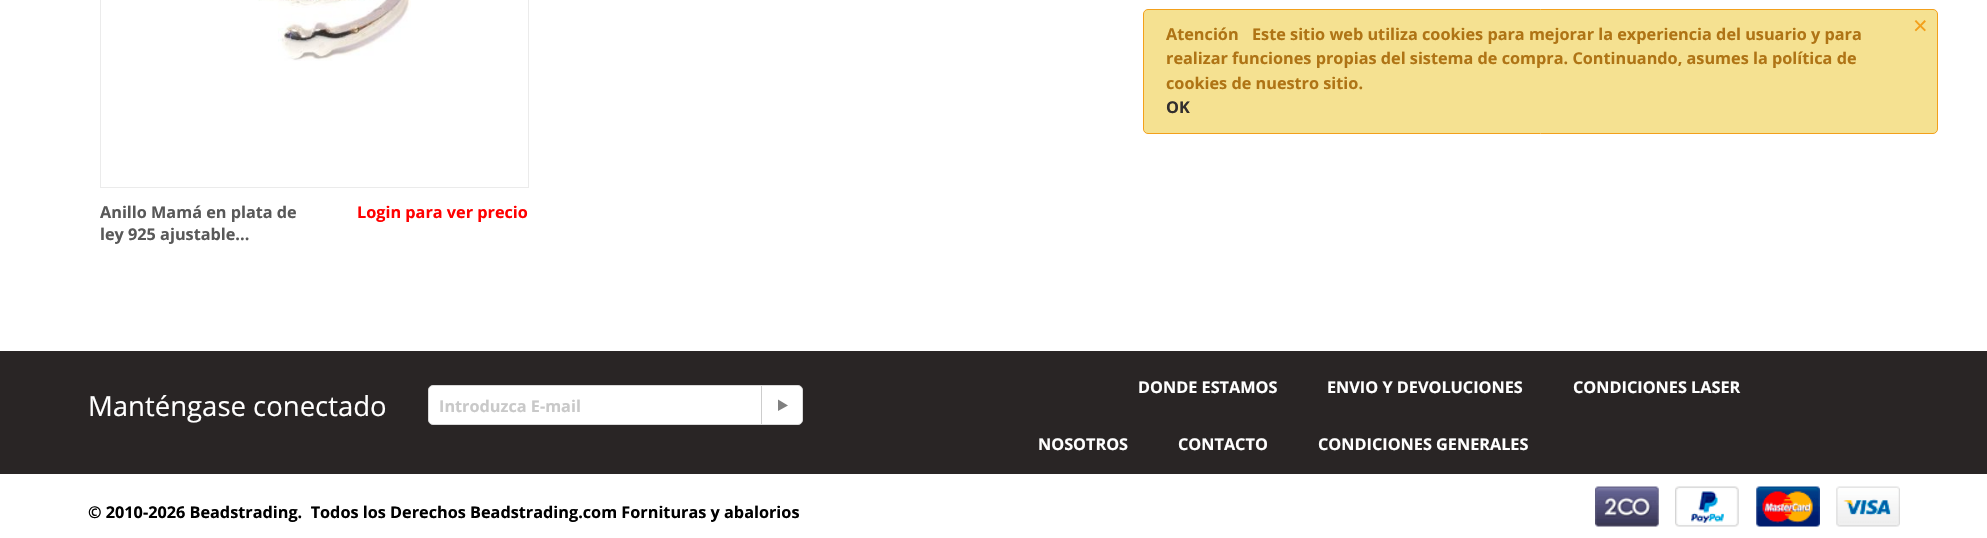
#include "include/core/SkBlurTypes.h"
#include "include/core/SkCanvas.h"
#include "include/core/SkData.h"
#include "include/core/SkFont.h"
#include "include/core/SkFontMgr.h"
#include "include/core/SkImage.h"
#include "include/core/SkMaskFilter.h"
#include "include/core/SkPaint.h"
#include "include/core/SkPathBuilder.h"
#include "include/core/SkTextBlob.h"
#include "include/effects/SkDashPathEffect.h"
#include "include/effects/SkGradientShader.h"
#include "include/utils/SkParsePath.h"

extern sk_sp<SkFontMgr> fontMgr;

void draw(SkCanvas* canvas) {
    SkPaint p;
    p.setAntiAlias(true);
    auto font = [&](const char* family, int weight, float size, bool italic = false) {
        SkFontStyle style(weight, SkFontStyle::kNormal_Width,
            italic ? SkFontStyle::kItalic_Slant : SkFontStyle::kUpright_Slant);
        SkFont result(fontMgr->matchFamilyStyle(family, style), size);
        result.setSubpixel(true);
        return result;
    };
    auto drawPhoto = [&](const char* path, float l, float t, float r, float b) {
        auto image = SkImages::DeferredFromEncodedData(SkData::MakeFromFileName(path));
        canvas->drawImageRect(image, SkRect::MakeLTRB(l, t, r, b), SkSamplingOptions());
    };
    canvas->clear(0xFFFFFFFF);
    p.setColor(0xFFF5E191);
    canvas->drawRoundRect(SkRect::MakeLTRB(1143.5f, 9.5f, 1937.5f, 133.5f), 4.5f, 4.5f, p);
    p.setStyle(SkPaint::kStroke_Style);
    p.setStrokeWidth(1);
    p.setColor(0xFFF3A01B);
    canvas->drawRoundRect(SkRect::MakeLTRB(1143.5f, 9.5f, 1937.5f, 133.5f), 4.5f, 4.5f, p);
    auto font1 = font("Open Sans", 700, 16.25f);
    p.setStyle(SkPaint::kFill_Style);
    p.setColor(0xFFAF7415);
    canvas->drawString("Atención", 1166, 40, font1, p);
    canvas->drawString("Este sitio web utiliza cookies para mejorar la experiencia del usuario y para", 1252, 40, font1, p);
    auto font2 = font("Liberation Sans", 400, 25);
    p.setColor(0xFFF3A01B);
    canvas->drawString("×", 1913, 34, font2, p);
    p.setColor(0xFFAF7415);
    canvas->drawString("realizar funciones propias del sistema de compra. Continuando, asumes la política de", 1166, 64, font1, p);
    canvas->drawString("cookies de nuestro sitio.", 1166, 89, font1, p);
    p.setColor(0xFF322E2E);
    canvas->drawString("OK", 1166, 113, font1, p);
    p.setStyle(SkPaint::kStroke_Style);
    p.setColor(0xFFEBEBEB);
    canvas->drawRect(SkRect::MakeLTRB(100.5f, -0.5f, 528.5f, 187.5f), p);
    drawPhoto("media/1.png", 258, 0, 411, 61);
    p.setStyle(SkPaint::kFill_Style);
    p.setColor(0xFF595959);
    canvas->drawString("Anillo Mamá en plata de", 100, 218, font1, p);
    canvas->drawString("ley 925 ajustable...", 100, 240, font1, p);
    p.setColor(0xFFFF0000);
    canvas->drawString("Login para ver precio", 357, 218, font1, p);
    p.setColor(0xFF292525);
    canvas->drawRect(SkRect::MakeLTRB(0, 351, 1987, 474), p);
    auto font3 = font("Open Sans", 400, 27.5f);
    p.setColor(0xFFFFFFFF);
    canvas->drawString("Manténgase conectado", 88, 416, font3, p);
    canvas->drawRoundRect(SkRect::MakeLTRB(428.5f, 385.5f, 802.5f, 424.5f), 4.5f, 4.5f, p);
    p.setStyle(SkPaint::kStroke_Style);
    p.setColor(0xFFD9D9D9);
    canvas->drawRoundRect(SkRect::MakeLTRB(428.5f, 385.5f, 802.5f, 424.5f), 4.5f, 4.5f, p);
    p.setStyle(SkPaint::kFill_Style);
    p.setColor(0xFFC9C9C9);
    canvas->drawString("Introduzca E-mail", 439, 412, font1, p);
    p.setColor(0xFFCDCDCD);
    canvas->drawRect(SkRect::MakeLTRB(761, 386, 762, 424), p);
    p.setColor(0xFF808080);
    canvas->drawPath(SkPathBuilder().moveTo(778, 399.5f).lineTo(788, 405.5f).lineTo(778, 411).close().detach(), p);
    p.setColor(0xFFFFFFFF);
    {
        const struct { const char* s; float x, y; } items[] = {
            {"DONDE ESTAMOS", 1138, 393},
            {"ENVIO Y DEVOLUCIONES", 1327, 393},
            {"CONDICIONES LASER", 1573, 393},
            {"NOSOTROS", 1038, 450},
            {"CONTACTO", 1178, 450},
            {"CONDICIONES GENERALES", 1318, 450},
        };
        for (auto [s, x, y] : items) {
            canvas->drawString(s, x, y, font1, p);
        }
    }
    p.setColor(0xFF000000);
    canvas->drawString("© 2010-2026 Beadstrading.  Todos los Derechos Beadstrading.com Fornituras y abalorios", 88, 518, font1, p);
    drawPhoto("media/2.png", 1595, 486, 1659, 527);
    drawPhoto("media/3.png", 1675, 486, 1739, 527);
    drawPhoto("media/4.png", 1756, 486, 1820, 527);
    drawPhoto("media/5.png", 1836, 486, 1900, 527);
}
